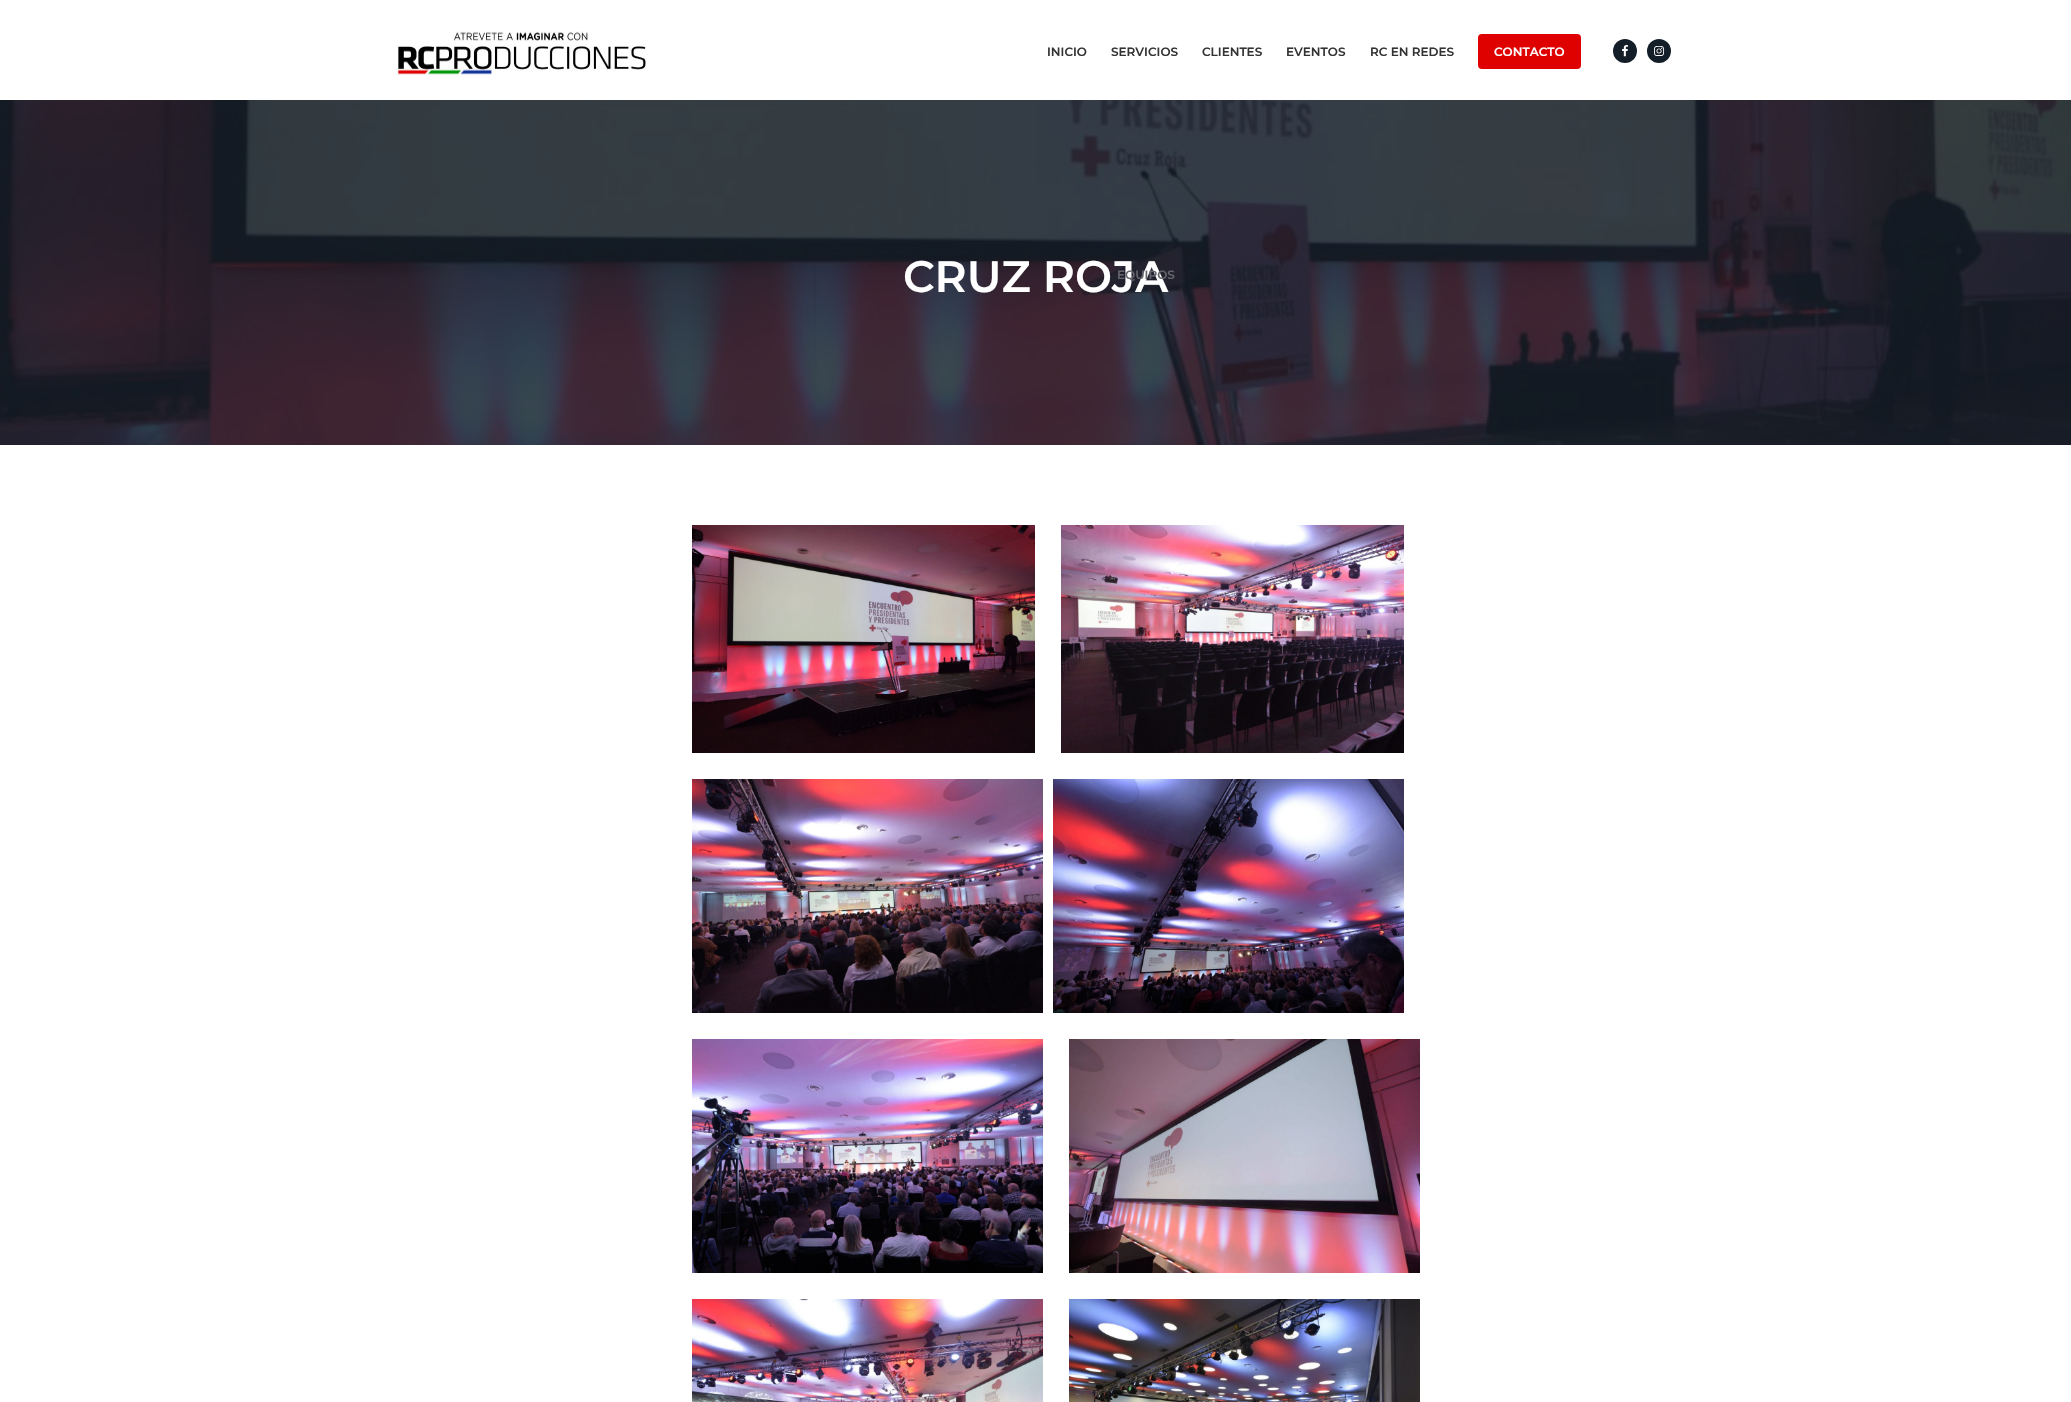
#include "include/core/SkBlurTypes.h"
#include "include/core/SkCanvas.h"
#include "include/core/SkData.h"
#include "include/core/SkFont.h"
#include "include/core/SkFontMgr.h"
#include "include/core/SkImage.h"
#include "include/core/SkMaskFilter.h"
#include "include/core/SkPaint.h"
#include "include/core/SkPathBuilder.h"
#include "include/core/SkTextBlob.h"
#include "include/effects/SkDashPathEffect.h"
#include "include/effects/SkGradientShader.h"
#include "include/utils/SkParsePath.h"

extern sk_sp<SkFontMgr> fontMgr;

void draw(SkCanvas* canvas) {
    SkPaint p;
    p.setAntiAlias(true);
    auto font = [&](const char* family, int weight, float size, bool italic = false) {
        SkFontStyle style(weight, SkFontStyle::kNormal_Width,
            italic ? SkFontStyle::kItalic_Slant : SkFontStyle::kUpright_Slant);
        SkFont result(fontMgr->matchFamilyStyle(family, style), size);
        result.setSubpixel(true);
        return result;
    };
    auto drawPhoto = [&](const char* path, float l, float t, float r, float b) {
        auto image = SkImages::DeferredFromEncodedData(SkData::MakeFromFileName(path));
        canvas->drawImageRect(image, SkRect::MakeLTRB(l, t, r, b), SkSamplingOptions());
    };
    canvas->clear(0xFFFFFFFF);
    drawPhoto("media/1.png", 0, 100, 2071, 445);
    auto font1 = font("Montserrat", 600, 44);
    p.setColor(0xFFFFFFFF);
    canvas->drawString("CRUZ ROJA", 903, 292, font1, p);
    drawPhoto("media/2.png", 396, 31, 646, 75);
    auto font2 = font("Montserrat", 600, 12);
    p.setColor(0xFF333333);
    canvas->drawString("INICIO", 1047, 56, font2, p);
    canvas->drawString("SERVICIOS", 1111, 56, font2, p);
    p.setColor(0xFF65656D);
    canvas->drawString("EQUIPOS", 1117, 279, font2, p);
    p.setColor(0xFF333333);
    {
        const struct { const char* s; float x, y; } items[] = {
            {"CLIENTES", 1202, 56},
            {"EVENTOS", 1286, 56},
            {"RC EN REDES", 1370, 56},
        };
        for (auto [s, x, y] : items) {
            canvas->drawString(s, x, y, font2, p);
        }
    }
    p.setColor(0xFFDF0000);
    canvas->drawRoundRect(SkRect::MakeLTRB(1478, 34, 1581, 69), 4, 4, p);
    p.setColor(0xFFFFFFFF);
    canvas->drawString("CONTACTO", 1494, 56, font2, p);
    p.setColor(0xFF141E28);
    canvas->drawCircle(1625, 51, 12, p);
    drawPhoto("media/3.png", 1622, 45, 1628, 57);
    canvas->drawCircle(1659, 51, 12, p);
    drawPhoto("media/4.png", 1654, 46, 1665, 56);
    drawPhoto("media/5.png", 692, 525, 1035, 753);
    drawPhoto("media/6.png", 1061, 525, 1404, 753);
    drawPhoto("media/7.png", 692, 779, 1043, 1013);
    drawPhoto("media/8.png", 1053, 779, 1404, 1013);
    drawPhoto("media/9.png", 692, 1039, 1043, 1273);
    drawPhoto("media/10.png", 1069, 1039, 1420, 1273);
    drawPhoto("media/11.png", 692, 1299, 1043, 1402);
    drawPhoto("media/12.png", 1069, 1299, 1420, 1402);
}
